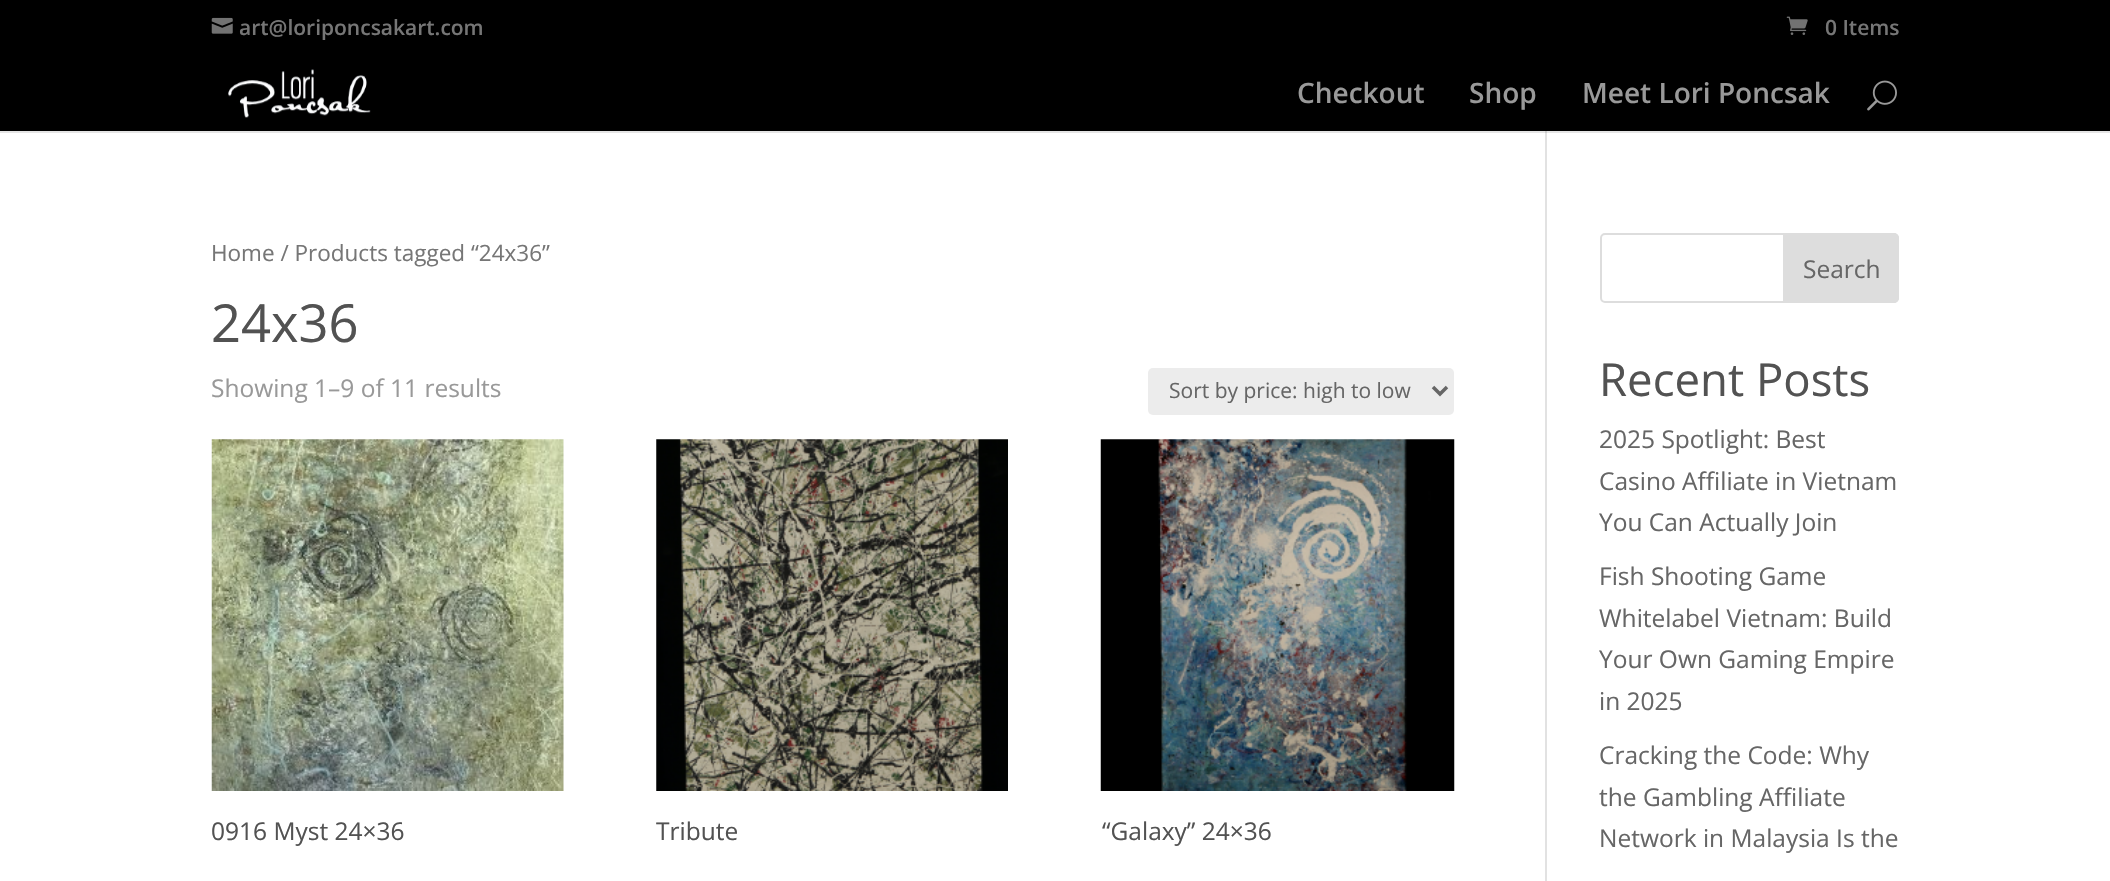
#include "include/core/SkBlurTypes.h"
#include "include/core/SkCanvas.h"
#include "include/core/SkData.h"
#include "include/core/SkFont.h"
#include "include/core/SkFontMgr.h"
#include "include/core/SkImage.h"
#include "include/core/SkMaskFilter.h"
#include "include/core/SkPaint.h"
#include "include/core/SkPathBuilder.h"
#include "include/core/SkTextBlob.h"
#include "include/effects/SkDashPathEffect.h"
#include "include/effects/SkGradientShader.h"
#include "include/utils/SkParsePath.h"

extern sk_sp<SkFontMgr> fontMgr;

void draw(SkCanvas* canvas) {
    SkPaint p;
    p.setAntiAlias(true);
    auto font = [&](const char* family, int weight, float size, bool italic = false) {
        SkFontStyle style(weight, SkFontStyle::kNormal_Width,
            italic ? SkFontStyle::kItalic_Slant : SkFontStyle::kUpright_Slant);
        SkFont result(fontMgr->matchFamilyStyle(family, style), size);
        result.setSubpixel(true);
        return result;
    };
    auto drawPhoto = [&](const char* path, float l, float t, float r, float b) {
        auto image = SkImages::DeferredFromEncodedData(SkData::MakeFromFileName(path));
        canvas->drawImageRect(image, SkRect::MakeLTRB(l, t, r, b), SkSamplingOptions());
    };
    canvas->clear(0xFFFFFFFF);
    p.setColor(0xFF000000);
    canvas->drawRect(SkRect::MakeLTRB(0, 0, 2110, 131), p);
    drawPhoto("media/1.png", 211, 17, 233, 34);
    auto font1 = font("Open Sans", 600, 21);
    p.setColor(0xFF767676);
    canvas->drawString("art@loriponcsakart.com", 239, 35, font1, p);
    drawPhoto("media/2.png", 1786, 16, 1808, 35);
    canvas->drawString("0 Items", 1825, 35, font1, p);
    p.setColor(0xFFE2E2E2);
    canvas->drawRect(SkRect::MakeLTRB(1545, 131, 1547, 881), p);
    p.setColor(0x1A000000);
    canvas->drawPath(SkPathBuilder().moveTo(0, 131).lineTo(0, 133).lineTo(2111, 133).lineTo(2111, 56).lineTo(2110, 56).lineTo(2110, 131).close().detach(), p);
    drawPhoto("media/3.png", 228, 69, 371, 118);
    auto font2 = font("Open Sans", 600, 28);
    p.setColor(0xFF999999);
    {
        const struct { const char* s; float x, y; } items[] = {
            {"Checkout", 1297, 103},
            {"Shop", 1469, 103},
            {"Meet Lori Poncsak", 1582, 103},
        };
        for (auto [s, x, y] : items) {
            canvas->drawString(s, x, y, font2, p);
        }
    }
    drawPhoto("media/4.png", 1867, 80, 1897, 111);
    auto font3 = font("Open Sans", 400, 22.5f);
    p.setColor(0xFF767676);
    canvas->drawString("Home / Products tagged “24x36”", 211, 261, font3, p);
    auto font4 = font("Open Sans", 400, 52.5f);
    p.setColor(0xFF525252);
    canvas->drawString("24x36", 211, 342, font4, p);
    auto font5 = font("Open Sans", 400, 24.5f);
    p.setColor(0xFF999999);
    canvas->drawString("Showing 1–9 of 11 results", 211, 397, font5, p);
    p.setColor(0xFFECECEC);
    canvas->drawRoundRect(SkRect::MakeLTRB(1148, 368, 1454, 415), 5, 5, p);
    p.setStyle(SkPaint::kStroke_Style);
    p.setStrokeWidth(3.5f);
    p.setColor(0xFF666666);
    canvas->drawPath(SkPathBuilder().moveTo(1433, 387).lineTo(1440, 394).lineTo(1447, 387).detach(), p);
    auto font6 = font("Open Sans", 400, 21);
    p.setStyle(SkPaint::kFill_Style);
    canvas->drawString("Sort by price: high to low", 1169, 398, font6, p);
    drawPhoto("media/5.png", 211, 439, 564, 791);
    p.setColor(0xFF525252);
    canvas->drawString("0916 Myst 24×36", 211, 840, font5, p);
    drawPhoto("media/6.png", 656, 439, 1008, 791);
    canvas->drawString("Tribute", 656, 840, font5, p);
    drawPhoto("media/7.png", 1100, 439, 1455, 791);
    canvas->drawString("“Galaxy” 24×36", 1102, 840, font5, p);
    p.setStyle(SkPaint::kStroke_Style);
    p.setStrokeWidth(2);
    p.setColor(0xFFDDDDDD);
    canvas->drawRoundRect(SkRect::MakeLTRB(1601, 234, 1898, 302), 4, 4, p);
    p.setStyle(SkPaint::kFill_Style);
    canvas->drawPath(SkPathBuilder().moveTo(1784, 234).lineTo(1894, 234).cubicTo(1896, 234, 1898, 236, 1898, 238).lineTo(1898, 298).cubicTo(1898, 300, 1896, 302, 1894, 302).lineTo(1784, 302).close().detach(), p);
    p.setStyle(SkPaint::kStroke_Style);
    canvas->drawPath(SkPathBuilder().moveTo(1784, 234).lineTo(1894, 234).cubicTo(1896, 234, 1898, 236, 1898, 238).lineTo(1898, 298).cubicTo(1898, 300, 1896, 302, 1894, 302).lineTo(1784, 302).close().detach(), p);
    p.setStyle(SkPaint::kFill_Style);
    p.setColor(0xFF666666);
    canvas->drawString("Search", 1803, 278, font5, p);
    auto font7 = font("Open Sans", 400, 45.5f);
    p.setColor(0xFF525252);
    canvas->drawString("Recent Posts", 1599, 396, font7, p);
    p.setColor(0xFF666666);
    {
        const struct { const char* s; float x, y; } items[] = {
            {"2025 Spotlight: Best", 1599, 448},
            {"Casino Affiliate in Vietnam", 1599, 490},
            {"You Can Actually Join", 1599, 531},
            {"Fish Shooting Game", 1599, 585},
            {"Whitelabel Vietnam: Build", 1599, 627},
            {"Your Own Gaming Empire", 1599, 668},
            {"in 2025", 1599, 710},
            {"Cracking the Code: Why", 1599, 764},
            {"the Gambling Affiliate", 1599, 806},
            {"Network in Malaysia Is the", 1599, 847},
        };
        for (auto [s, x, y] : items) {
            canvas->drawString(s, x, y, font5, p);
        }
    }
}
